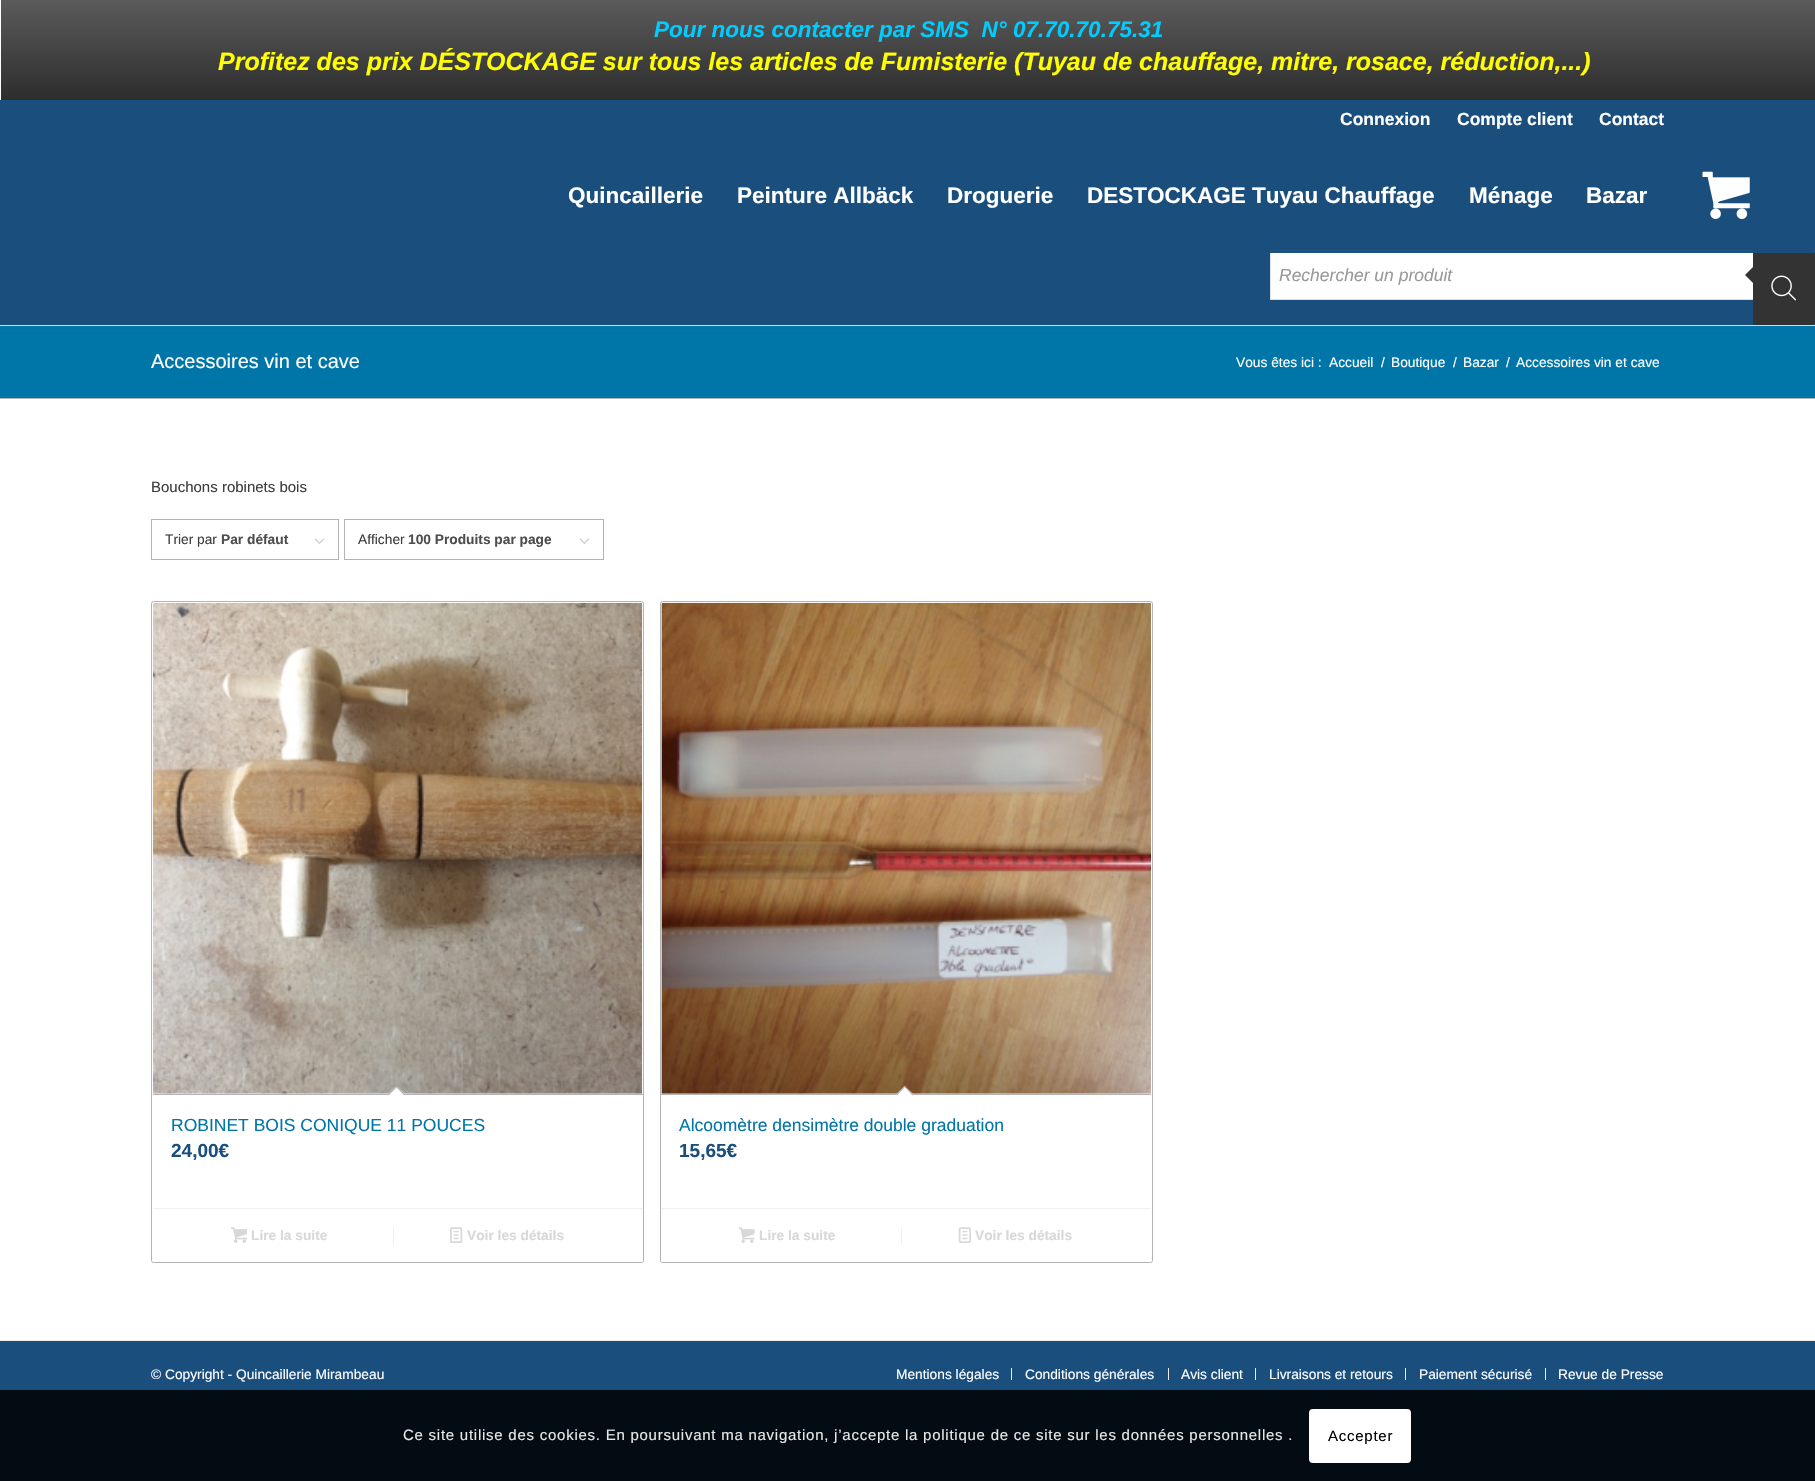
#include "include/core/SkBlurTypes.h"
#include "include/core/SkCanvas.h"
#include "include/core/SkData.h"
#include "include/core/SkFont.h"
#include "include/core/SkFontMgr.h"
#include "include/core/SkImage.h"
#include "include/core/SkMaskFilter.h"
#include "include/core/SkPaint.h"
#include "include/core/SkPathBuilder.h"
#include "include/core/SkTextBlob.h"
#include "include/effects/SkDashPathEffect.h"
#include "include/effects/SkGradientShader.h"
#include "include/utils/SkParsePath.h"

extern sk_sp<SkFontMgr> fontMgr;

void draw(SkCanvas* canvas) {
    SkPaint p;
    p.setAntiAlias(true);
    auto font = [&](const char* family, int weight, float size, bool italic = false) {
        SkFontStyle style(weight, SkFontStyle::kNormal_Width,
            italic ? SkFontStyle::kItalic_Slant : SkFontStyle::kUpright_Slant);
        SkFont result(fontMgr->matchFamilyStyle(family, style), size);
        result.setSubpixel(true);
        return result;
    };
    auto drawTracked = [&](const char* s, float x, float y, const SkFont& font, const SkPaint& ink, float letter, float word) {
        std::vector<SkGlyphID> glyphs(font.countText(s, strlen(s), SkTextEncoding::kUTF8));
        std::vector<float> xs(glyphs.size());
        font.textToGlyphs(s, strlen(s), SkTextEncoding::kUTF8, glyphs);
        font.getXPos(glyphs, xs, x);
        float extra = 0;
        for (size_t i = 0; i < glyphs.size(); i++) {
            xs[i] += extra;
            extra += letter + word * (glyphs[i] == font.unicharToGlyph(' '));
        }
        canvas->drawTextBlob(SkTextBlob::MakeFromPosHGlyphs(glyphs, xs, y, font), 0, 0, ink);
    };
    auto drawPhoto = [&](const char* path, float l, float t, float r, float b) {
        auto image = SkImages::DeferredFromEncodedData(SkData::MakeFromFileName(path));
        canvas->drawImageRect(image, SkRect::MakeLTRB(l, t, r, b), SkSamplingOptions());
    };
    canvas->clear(0xFF194E7D);
    {
        const SkColor colors[] = {0xFF888888, 0xFF000000};
        const float stops[] = {0, 1};
        const SkPoint ends[] = {{908, -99}, {908, 199}};
        p.setShader(SkGradientShader::MakeLinear(ends, colors, stops, 2, SkTileMode::kClamp));
        p.setAlpha(255);
    }
    canvas->drawRect(SkRect::MakeLTRB(1, 0, 1815, 100), p);
    p.setShader(nullptr);
    p.setColor(0xFFFFFFFF);
    canvas->drawRect(SkRect::MakeLTRB(0, 0, 1, 100), p);
    auto font1 = font("Liberation Sans", 700, 22.5f, true);
    p.setColor(0xFF00CCFF);
    canvas->drawString("Pour nous contacter par SMS  N° 07.70.70.75.31", 654, 37, font1, p);
    auto font2 = font("Liberation Sans", 700, 25, true);
    p.setColor(0xFFFFFF00);
    canvas->drawString("Profitez des prix DÉSTOCKAGE sur tous les articles de Fumisterie (Tuyau de chauffage, mitre, rosace, réduction,...)", 218, 70, font2, p);
    auto font3 = font("Liberation Sans", 700, 17.5f);
    p.setColor(0xFFFFFFFF);
    {
        const struct { const char* s; float x, y; } items[] = {
            {"Connexion", 1340, 125},
            {"Compte client", 1457, 125},
            {"Contact", 1599, 125},
        };
        for (auto [s, x, y] : items) {
            canvas->drawString(s, x, y, font3, p);
        }
    }
    canvas->drawRect(SkRect::MakeLTRB(1271, 252, 1753, 299), p);
    p.setStyle(SkPaint::kStroke_Style);
    p.setStrokeWidth(1);
    p.setColor(0xFFE1E1E1);
    canvas->drawRect(SkRect::MakeLTRB(1270.5f, 250.5f, 1814.5f, 299.5f), p);
    p.setStyle(SkPaint::kFill_Style);
    p.setColor(0xFF333333);
    canvas->drawPath(SkPathBuilder().moveTo(1753, 250).lineTo(1812.5f, 250).cubicTo(1814, 250, 1815, 251, 1815, 252.5f).lineTo(1815, 322.5f).cubicTo(1815, 324, 1814, 325, 1812.5f, 325).lineTo(1753, 325).close().detach(), p);
    p.setColor(0xF2194E7D);
    canvas->drawRect(SkRect::MakeLTRB(1270, 250, 1815, 253), p);
    p.setColor(0xFF194E7D);
    canvas->drawRect(SkRect::MakeLTRB(1270, 251, 1815, 252), p);
    auto font4 = font("Liberation Sans", 700, 22.5f);
    p.setColor(0xFFFFFFFF);
    {
        const struct { const char* s; float x, y; } items[] = {
            {"Quincaillerie", 568, 203},
            {"Peinture Allbäck", 737, 203},
            {"Droguerie", 947, 203},
            {"DESTOCKAGE Tuyau Chauffage", 1087, 203},
            {"Ménage", 1469, 203},
            {"Bazar", 1586, 203},
        };
        for (auto [s, x, y] : items) {
            canvas->drawString(s, x, y, font4, p);
        }
    }
    drawPhoto("media/1.png", 1702, 171, 1750, 219);
    auto font5 = font("Liberation Sans", 400, 17.5f, true);
    p.setColor(0xFF999999);
    canvas->drawString("Rechercher un produit", 1279, 281, font5, p);
    p.setColor(0xFF333333);
    canvas->drawPath(SkPathBuilder().moveTo(1755, 265).lineTo(1755, 285).lineTo(1745, 275).close().detach(), p);
    drawPhoto("media/2.png", 1771, 275, 1796, 301);
    p.setColor(0xFF0076A8);
    canvas->drawRect(SkRect::MakeLTRB(0, 326, 1815, 398), p);
    p.setColor(0xFFD9D9D9);
    canvas->drawRect(SkRect::MakeLTRB(0, 325, 1815, 326), p);
    auto font6 = font("Liberation Sans", 400, 20);
    p.setColor(0xFFFFFFFF);
    canvas->drawString("Accessoires vin et cave", 151, 368, font6, p);
    auto font7 = font("Liberation Sans", 400, 13.75f);
    {
        const struct { const char* s; float x, y; } items[] = {
            {"Vous êtes ici :", 1236, 367},
            {"Accueil", 1329, 367},
            {"/", 1381, 367},
            {"Boutique", 1391, 367},
            {"/", 1453, 367},
            {"Bazar", 1463, 367},
            {"/", 1506, 367},
            {"Accessoires vin et cave", 1516, 367},
        };
        for (auto [s, x, y] : items) {
            canvas->drawString(s, x, y, font7, p);
        }
    }
    canvas->drawRect(SkRect::MakeLTRB(0, 399, 1815, 1340), p);
    p.setColor(0xFFB3B3B3);
    canvas->drawRect(SkRect::MakeLTRB(0, 398, 1815, 399), p);
    auto font8 = font("Liberation Sans", 400, 15);
    p.setColor(0xFF3D3D3D);
    canvas->drawString("Bouchons robinets bois", 151, 492, font8, p);
    drawPhoto("media/3.png", 315, 538, 324, 544);
    p.setStyle(SkPaint::kStroke_Style);
    p.setColor(0xFFB3B3B3);
    canvas->drawRect(SkRect::MakeLTRB(151.5f, 519.5f, 338.5f, 559.5f), p);
    p.setStyle(SkPaint::kFill_Style);
    p.setColor(0xFF3D3D3D);
    canvas->drawString("Trier par", 165, 544, font7, p);
    auto font9 = font("Liberation Sans", 700, 13.75f);
    p.setColor(0xFF4D4D4D);
    canvas->drawString("Par défaut", 221, 544, font9, p);
    drawPhoto("media/3.png", 580, 538, 589, 544);
    p.setStyle(SkPaint::kStroke_Style);
    p.setColor(0xFFB3B3B3);
    canvas->drawRect(SkRect::MakeLTRB(344.5f, 519.5f, 603.5f, 559.5f), p);
    p.setStyle(SkPaint::kFill_Style);
    p.setColor(0xFF3D3D3D);
    canvas->drawString("Afficher", 358, 544, font7, p);
    p.setColor(0xFF4D4D4D);
    canvas->drawString("100 Produits par page", 408, 544, font9, p);
    p.setStyle(SkPaint::kStroke_Style);
    p.setColor(0xFFB3B3B3);
    canvas->drawRoundRect(SkRect::MakeLTRB(151.5f, 601.5f, 643.5f, 1262.5f), 2, 2, p);
    drawPhoto("media/4.png", 152, 602, 643, 1094);
    p.setStyle(SkPaint::kFill_Style);
    canvas->drawRect(SkRect::MakeLTRB(153, 1094, 643, 1095), p);
    p.setColor(0xFFFFFFFF);
    canvas->drawPath(SkPathBuilder().moveTo(396.5f, 1086).lineTo(405.5f, 1094.5f).lineTo(396.5f, 1103.5f).lineTo(387.5f, 1094.5f).close().detach(), p);
    p.setColor(0xFFB3B3B3);
    canvas->drawPath(SkPathBuilder().moveTo(396.5f, 1086).lineTo(405.5f, 1094.5f).lineTo(404.5f, 1095.5f).lineTo(395.5f, 1086.5f).close().detach(), p);
    canvas->drawPath(SkPathBuilder().moveTo(396.5f, 1086).lineTo(397.5f, 1086.5f).lineTo(388.5f, 1095.5f).lineTo(387.5f, 1094.5f).close().detach(), p);
    auto font10 = font("Liberation Sans", 400, 17.5f);
    p.setColor(0xFF0076A8);
    canvas->drawString("ROBINET BOIS CONIQUE 11 POUCES", 171, 1131, font10, p);
    auto font11 = font("Liberation Sans", 700, 19);
    p.setColor(0xFF194E7D);
    canvas->drawString("24,00€", 171, 1157, font11, p);
    p.setColor(0xFFF0F0F0);
    canvas->drawRect(SkRect::MakeLTRB(153, 1208, 643, 1209), p);
    drawPhoto("media/5.png", 231, 1227, 247, 1243);
    p.setColor(0xFFD8D8D8);
    canvas->drawString("Lire la suite", 251, 1240, font9, p);
    p.setColor(0xFFF0F0F0);
    canvas->drawRect(SkRect::MakeLTRB(393, 1228, 394, 1245), p);
    drawPhoto("media/6.png", 450, 1227, 463, 1243);
    p.setColor(0xFFD8D8D8);
    canvas->drawString("Voir les détails", 467, 1240, font9, p);
    p.setStyle(SkPaint::kStroke_Style);
    p.setColor(0xFFB3B3B3);
    canvas->drawRoundRect(SkRect::MakeLTRB(660.5f, 601.5f, 1152.5f, 1262.5f), 2, 2, p);
    drawPhoto("media/7.png", 661, 602, 1151, 1094);
    p.setStyle(SkPaint::kFill_Style);
    canvas->drawRect(SkRect::MakeLTRB(661, 1094, 1151, 1095), p);
    p.setColor(0xFFFFFFFF);
    canvas->drawPath(SkPathBuilder().moveTo(904.5f, 1086).lineTo(913.5f, 1094.5f).lineTo(904.5f, 1103.5f).lineTo(896, 1094.5f).close().detach(), p);
    p.setColor(0xFFB3B3B3);
    canvas->drawPath(SkPathBuilder().moveTo(904.5f, 1086).lineTo(913.5f, 1094.5f).lineTo(912.5f, 1095.5f).lineTo(904, 1086.5f).close().detach(), p);
    canvas->drawPath(SkPathBuilder().moveTo(904.5f, 1086).lineTo(905.5f, 1086.5f).lineTo(897, 1095.5f).lineTo(896, 1094.5f).close().detach(), p);
    p.setColor(0xFF0076A8);
    canvas->drawString("Alcoomètre densimètre double graduation", 679, 1131, font10, p);
    p.setColor(0xFF194E7D);
    canvas->drawString("15,65€", 679, 1157, font11, p);
    p.setColor(0xFFF0F0F0);
    canvas->drawRect(SkRect::MakeLTRB(661, 1208, 1151, 1209), p);
    drawPhoto("media/8.png", 738, 1227, 755, 1243);
    p.setColor(0xFFD8D8D8);
    canvas->drawString("Lire la suite", 759, 1240, font9, p);
    p.setColor(0xFFF0F0F0);
    canvas->drawRect(SkRect::MakeLTRB(901, 1228, 902, 1245), p);
    drawPhoto("media/9.png", 958, 1227, 971, 1243);
    p.setColor(0xFFD8D8D8);
    canvas->drawString("Voir les détails", 975, 1240, font9, p);
    p.setColor(0xFFEBEBEB);
    canvas->drawRect(SkRect::MakeLTRB(0, 1340, 1815, 1341), p);
    p.setColor(0xFFFFFFFF);
    canvas->drawString("© Copyright - Quincaillerie Mirambeau", 151, 1379, font7, p);
    canvas->drawString("Mentions légales", 896, 1379, font7, p);
    p.setColor(0xFFEBEBEB);
    canvas->drawRect(SkRect::MakeLTRB(1011, 1368, 1012, 1380), p);
    p.setColor(0xFFFFFFFF);
    canvas->drawString("Conditions générales", 1025, 1379, font7, p);
    p.setColor(0xFFEBEBEB);
    canvas->drawRect(SkRect::MakeLTRB(1168, 1368, 1169, 1380), p);
    p.setColor(0xFFFFFFFF);
    canvas->drawString("Avis client", 1181, 1379, font7, p);
    p.setColor(0xFFEBEBEB);
    canvas->drawRect(SkRect::MakeLTRB(1255, 1368, 1256, 1380), p);
    p.setColor(0xFFFFFFFF);
    canvas->drawString("Livraisons et retours", 1269, 1379, font7, p);
    p.setColor(0xFFEBEBEB);
    canvas->drawRect(SkRect::MakeLTRB(1405, 1368, 1406, 1380), p);
    p.setColor(0xFFFFFFFF);
    canvas->drawString("Paiement sécurisé", 1419, 1379, font7, p);
    p.setColor(0xFFEBEBEB);
    canvas->drawRect(SkRect::MakeLTRB(1545, 1368, 1546, 1380), p);
    p.setColor(0xFFFFFFFF);
    canvas->drawString("Revue de Presse", 1558, 1379, font7, p);
    p.setColor(0xFF040C13);
    canvas->drawRect(SkRect::MakeLTRB(0, 1390, 1815, 1481), p);
    p.setColor(0xFFE6E7E7);
    drawTracked("Ce site utilise des cookies. En poursuivant ma navigation, j’accepte la politique de ce site sur les données personnelles .", 403, 1440, font8, p, 0.75f, 0);
    p.setColor(0xFFFFFFFF);
    canvas->drawRoundRect(SkRect::MakeLTRB(1309, 1409, 1411, 1463), 4, 4, p);
    p.setColor(0xFF000000);
    drawTracked("Accepter", 1328, 1441, font8, p, 0.75f, 0);
}
